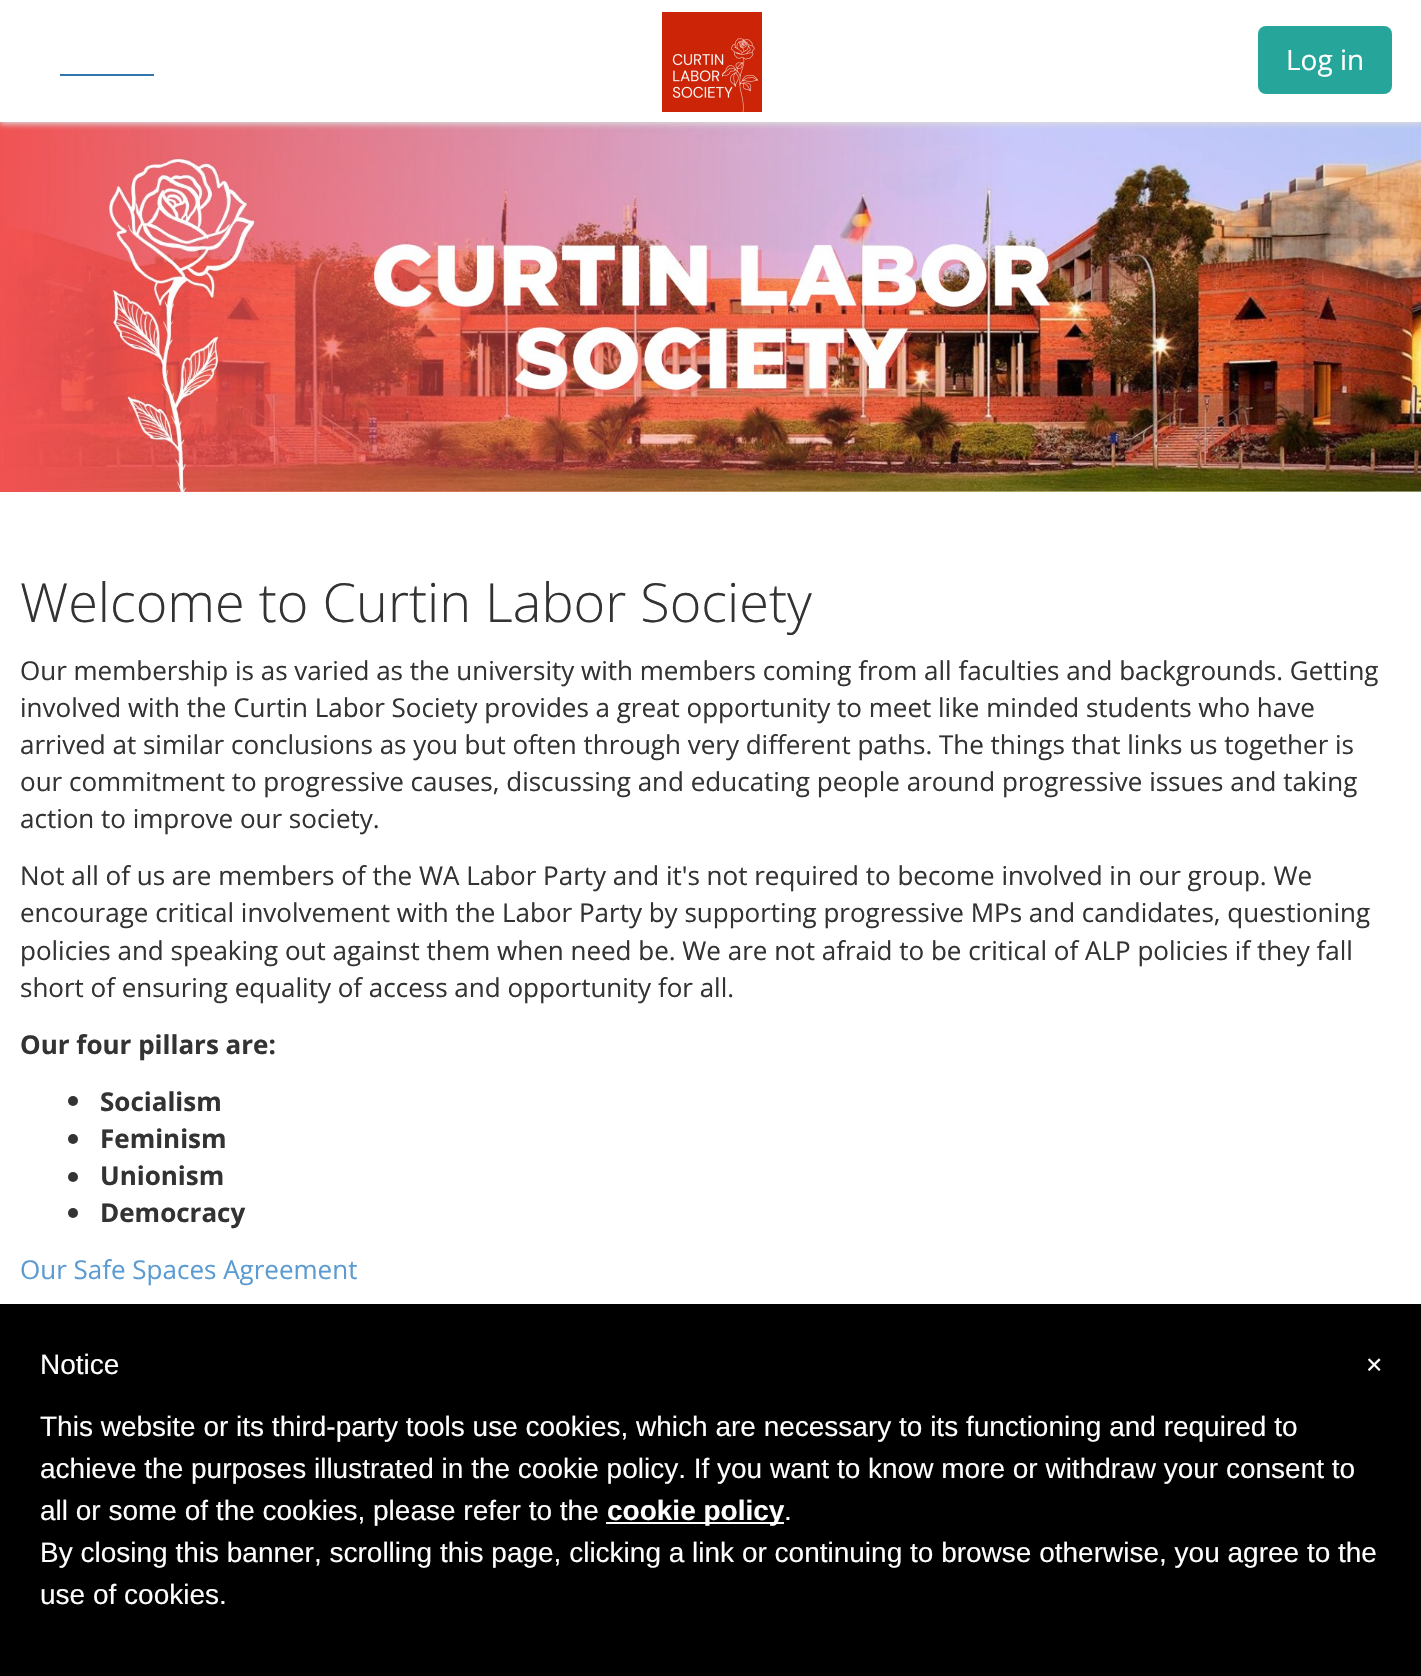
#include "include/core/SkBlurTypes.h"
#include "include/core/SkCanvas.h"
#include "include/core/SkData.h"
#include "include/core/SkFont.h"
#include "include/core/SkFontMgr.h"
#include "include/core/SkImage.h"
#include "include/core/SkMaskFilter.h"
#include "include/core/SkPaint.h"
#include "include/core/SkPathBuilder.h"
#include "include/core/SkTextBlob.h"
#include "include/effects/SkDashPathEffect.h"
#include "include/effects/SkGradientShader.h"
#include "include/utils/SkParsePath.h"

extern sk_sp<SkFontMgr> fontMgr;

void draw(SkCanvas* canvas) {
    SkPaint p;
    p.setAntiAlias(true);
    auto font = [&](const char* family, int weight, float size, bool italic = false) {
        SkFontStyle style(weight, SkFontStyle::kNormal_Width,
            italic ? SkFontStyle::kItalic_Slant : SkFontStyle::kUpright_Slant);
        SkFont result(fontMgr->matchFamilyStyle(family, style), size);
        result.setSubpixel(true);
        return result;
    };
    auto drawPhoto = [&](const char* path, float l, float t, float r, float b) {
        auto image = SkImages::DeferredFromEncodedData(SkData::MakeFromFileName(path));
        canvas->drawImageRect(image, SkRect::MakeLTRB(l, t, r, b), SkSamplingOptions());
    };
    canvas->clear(0xFFFFFFFF);
    drawPhoto("media/2.png", 0, 122, 1421, 492);
    canvas->save();
    canvas->clipRect(SkRect::MakeLTRB(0, 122, 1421, 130));
    p.setColor(0xFFDDDDDD);
    p.setMaskFilter(SkMaskFilter::MakeBlur(kNormal_SkBlurStyle, 3));
    canvas->drawRect(SkRect::MakeLTRB(0, 2, 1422, 124), p);
    p.setMaskFilter(nullptr);
    canvas->restore();
    p.setColor(0xFF3175AF);
    canvas->drawRect(SkRect::MakeLTRB(60, 74, 154, 76), p);
    drawPhoto("media/1.png", 662, 12, 762, 112);
    p.setColor(0xFF26A69A);
    canvas->drawRoundRect(SkRect::MakeLTRB(1258, 26, 1392, 94), 8, 8, p);
    auto font1 = font("Open Sans", 400, 28);
    p.setColor(0xFFFFFFFF);
    canvas->drawString("Log in", 1286, 70, font1, p);
    auto font2 = font("Open Sans", 300, 54);
    p.setColor(0xFF333333);
    canvas->drawString("Welcome to Curtin Labor Society", 20, 622, font2, p);
    auto font3 = font("Open Sans", 400, 26);
    {
        const struct { const char* s; float x, y; } items[] = {
            {"Our membership is as varied as the university with members coming from all faculties and backgrounds. Getting", 20, 680},
            {"involved with the Curtin Labor Society provides a great opportunity to meet like minded students who have", 20, 717},
            {"arrived at similar conclusions as you but often through very different paths. The things that links us together is", 20, 754},
            {"our commitment to progressive causes, discussing and educating people around progressive issues and taking", 20, 791},
            {"action to improve our society.", 20, 828},
            {"Not all of us are members of the WA Labor Party and it's not required to become involved in our group. We", 20, 885},
            {"encourage critical involvement with the Labor Party by supporting progressive MPs and candidates, questioning", 20, 922},
            {"policies and speaking out against them when need be. We are not afraid to be critical of ALP policies if they fall", 20, 960},
            {"short of ensuring equality of access and opportunity for all.", 20, 997},
        };
        for (auto [s, x, y] : items) {
            canvas->drawString(s, x, y, font3, p);
        }
    }
    auto font4 = font("Open Sans", 700, 26);
    canvas->drawString("Our four pillars are:", 20, 1054, font4, p);
    canvas->drawCircle(73, 1101, 5, p);
    canvas->drawString("Socialism", 100, 1111, font4, p);
    canvas->drawCircle(73, 1139, 5, p);
    canvas->drawString("Feminism", 100, 1148, font4, p);
    canvas->drawCircle(73, 1177, 5, p);
    canvas->drawString("Unionism", 100, 1185, font4, p);
    canvas->drawCircle(73, 1213, 5, p);
    canvas->drawString("Democracy", 100, 1222, font4, p);
    p.setColor(0xFF5B9BD1);
    canvas->drawString("Our Safe Spaces Agreement", 20, 1279, font3, p);
    p.setColor(0xFF000000);
    canvas->drawRect(SkRect::MakeLTRB(0, 1304, 1421, 1676), p);
    auto font5 = font("Liberation Sans", 400, 28);
    p.setColor(0xFFFFFFFF);
    {
        const struct { const char* s; float x, y; } items[] = {
            {"Notice", 40, 1374},
            {"This website or its third-party tools use cookies, which are necessary to its functioning and required to", 40, 1436},
            {"achieve the purposes illustrated in the cookie policy. If you want to know more or withdraw your consent to", 40, 1478},
            {"all or some of the cookies, please refer to the", 40, 1520},
        };
        for (auto [s, x, y] : items) {
            canvas->drawString(s, x, y, font5, p);
        }
    }
    canvas->drawRect(SkRect::MakeLTRB(606, 1522, 784, 1524), p);
    auto font6 = font("Liberation Sans", 700, 28);
    canvas->drawString("cookie policy", 607, 1520, font6, p);
    {
        const struct { const char* s; float x, y; } items[] = {
            {".", 784, 1520},
            {"By closing this banner, scrolling this page, clicking a link or continuing to browse otherwise, you agree to the", 40, 1562},
            {"use of cookies.", 40, 1604},
            {"×", 1366, 1374},
        };
        for (auto [s, x, y] : items) {
            canvas->drawString(s, x, y, font5, p);
        }
    }
}
